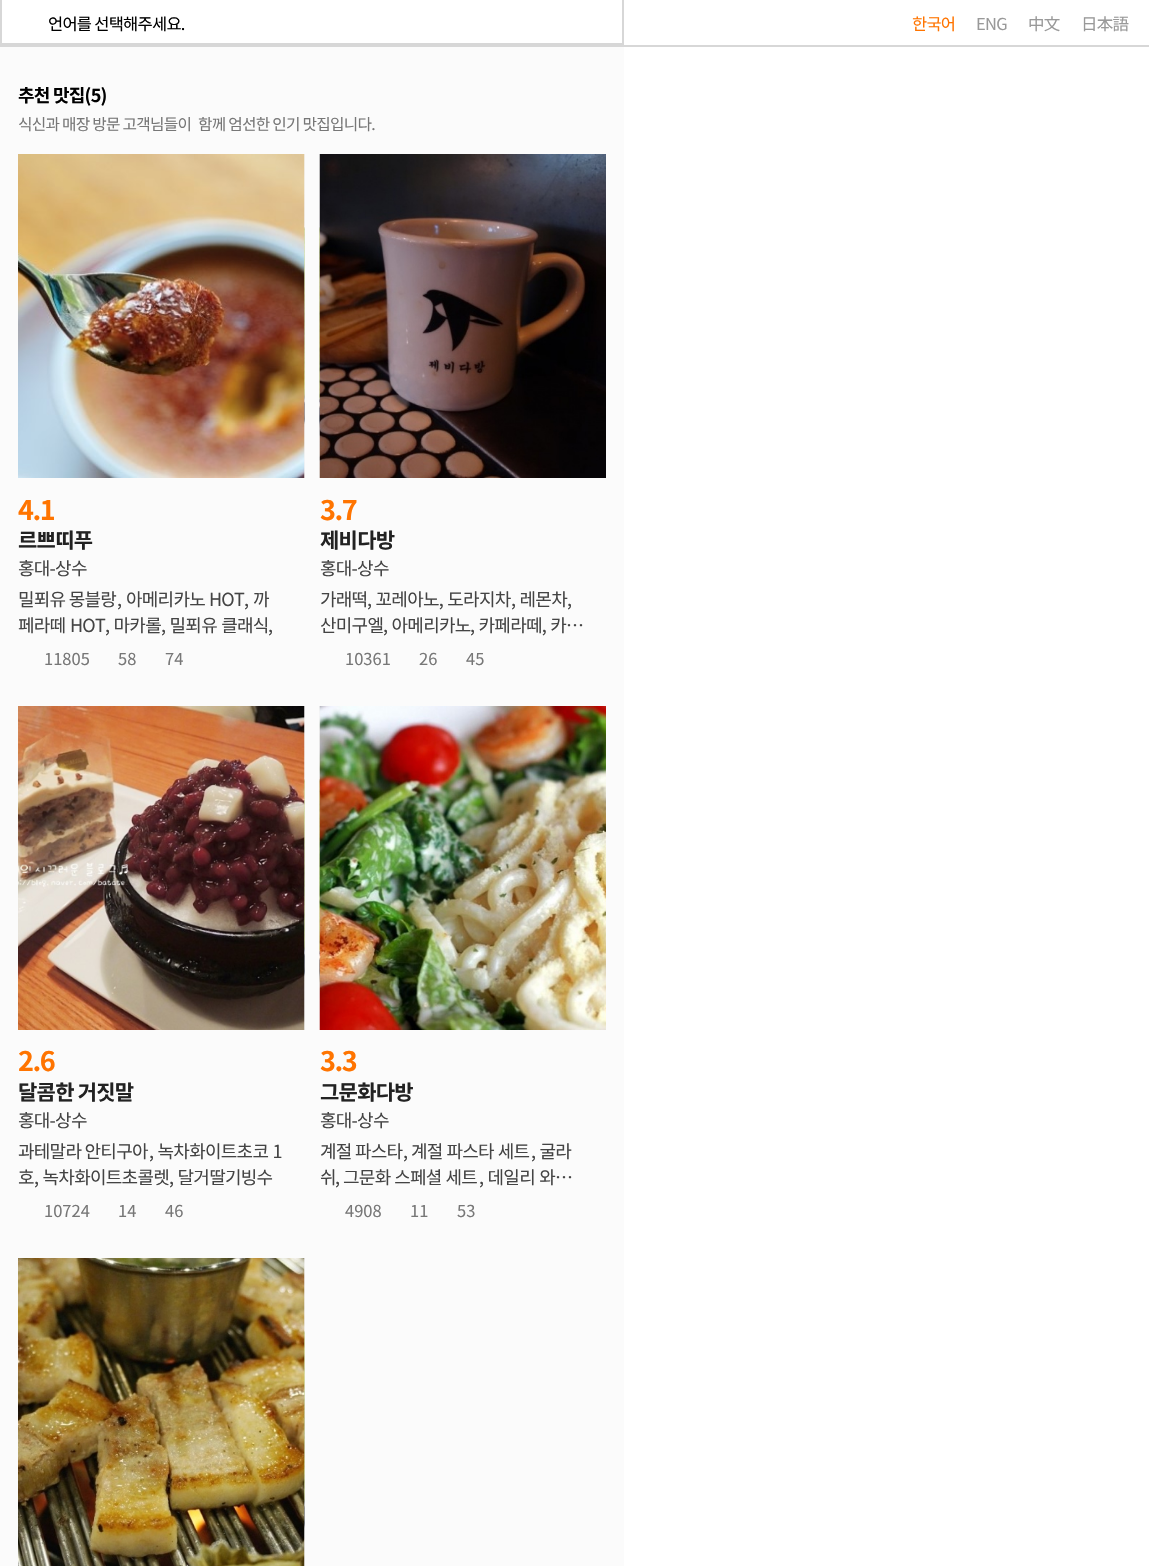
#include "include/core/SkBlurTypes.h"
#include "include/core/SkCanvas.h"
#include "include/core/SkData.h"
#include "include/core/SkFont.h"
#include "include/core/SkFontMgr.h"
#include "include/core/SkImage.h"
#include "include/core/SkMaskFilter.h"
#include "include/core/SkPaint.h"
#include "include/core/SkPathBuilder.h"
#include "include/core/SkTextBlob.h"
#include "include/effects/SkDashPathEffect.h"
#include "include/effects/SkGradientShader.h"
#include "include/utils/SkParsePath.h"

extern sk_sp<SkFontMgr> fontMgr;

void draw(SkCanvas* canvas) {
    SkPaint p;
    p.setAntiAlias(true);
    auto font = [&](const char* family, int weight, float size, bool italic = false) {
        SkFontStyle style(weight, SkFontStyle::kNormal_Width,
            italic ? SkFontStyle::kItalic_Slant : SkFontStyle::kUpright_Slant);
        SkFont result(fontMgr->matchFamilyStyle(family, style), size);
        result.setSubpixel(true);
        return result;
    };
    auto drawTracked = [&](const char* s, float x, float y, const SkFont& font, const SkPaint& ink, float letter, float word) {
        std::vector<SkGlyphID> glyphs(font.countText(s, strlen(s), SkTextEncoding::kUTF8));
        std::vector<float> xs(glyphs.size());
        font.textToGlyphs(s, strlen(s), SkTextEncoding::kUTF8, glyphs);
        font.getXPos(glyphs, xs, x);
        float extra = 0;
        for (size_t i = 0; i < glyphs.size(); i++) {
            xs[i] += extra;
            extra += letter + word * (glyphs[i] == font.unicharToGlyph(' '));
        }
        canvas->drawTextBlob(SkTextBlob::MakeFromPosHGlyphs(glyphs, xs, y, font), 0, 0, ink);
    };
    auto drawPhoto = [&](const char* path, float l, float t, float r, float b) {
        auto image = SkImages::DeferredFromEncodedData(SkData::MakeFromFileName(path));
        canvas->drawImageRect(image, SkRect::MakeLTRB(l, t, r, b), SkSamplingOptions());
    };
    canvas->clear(0xFFFFFFFF);
    p.setColor(0xFFD7D7D7);
    canvas->drawRect(SkRect::MakeLTRB(0, 45, 1149, 47), p);
    auto font1 = font("Noto Sans KR", 400, 16.5f);
    p.setColor(0xFF000000);
    drawTracked("언어를 선택해주세요.", 48, 30, font1, p, -0.75f, 0);
    p.setColor(0xFFFF7400);
    drawTracked("한국어", 912, 30, font1, p, -0.75f, 0);
    auto font2 = font("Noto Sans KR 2", 400, 16.5f);
    p.setColor(0xFF999999);
    {
        const struct { const char* s; float x, y; } items[] = {
            {"ENG", 976, 30},
            {"中文", 1028, 30},
            {"日本語", 1081, 30},
        };
        for (auto [s, x, y] : items) {
            drawTracked(s, x, y, font2, p, -0.75f, 0);
        }
    }
    p.setStyle(SkPaint::kStroke_Style);
    p.setStrokeWidth(2);
    p.setColor(0xFFD7D7D7);
    canvas->drawRect(SkRect::MakeLTRB(1, -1, 623, 44), p);
    p.setStyle(SkPaint::kFill_Style);
    p.setColor(0xFFFBFBFB);
    canvas->drawRect(SkRect::MakeLTRB(0, 47, 624, 1566), p);
    auto font3 = font("Noto Sans KR", 700, 18);
    p.setColor(0xFF000000);
    drawTracked("추천 맛집(5)", 18, 102, font3, p, -0.75f, 0);
    auto font4 = font("Noto Sans KR", 400, 15.75f);
    p.setColor(0xFF777777);
    drawTracked("식신과 매장 방문 고객님들이", 18, 130, font4, p, -0.75f, 0);
    drawTracked("함께 엄선한 인기 맛집입니다.", 198, 130, font4, p, -0.75f, 0);
    drawPhoto("media/1.png", 304, 154, 305, 478);
    drawPhoto("media/2.png", 18, 154, 305, 478);
    auto font5 = font("Noto Sans KR 2", 700, 27);
    p.setColor(0xFFFF7400);
    drawTracked("4.1", 18, 520, font5, p, -1.5f, 0);
    auto font6 = font("Noto Sans KR", 700, 21);
    p.setColor(0xFF222222);
    drawTracked("르쁘띠푸", 18, 548, font6, p, -0.75f, 0);
    auto font7 = font("Noto Sans KR", 400, 18);
    p.setColor(0xFF444444);
    drawTracked("홍대-상수", 18, 575, font7, p, -0.75f, 0);
    drawTracked("밀푀유 몽블랑", 18, 606, font7, p, -0.75f, 0);
    auto font8 = font("Noto Sans KR 2", 400, 18);
    drawTracked(",", 117, 606, font8, p, -0.75f, 0);
    drawTracked("아메리카노", 126, 606, font7, p, -0.75f, 0);
    drawTracked("HOT,", 209, 606, font8, p, -0.75f, 0);
    drawTracked("까", 253, 606, font7, p, -0.75f, 0);
    drawTracked("페라떼", 18, 632, font7, p, -0.75f, 0);
    drawTracked("HOT", 70, 632, font8, p, -0.75f, 0);
    drawTracked(", 마카롤", 105, 632, font7, p, -0.75f, 1);
    drawTracked(", 밀푀유 클래식", 161, 632, font7, p, -0.75f, 1);
    drawTracked(",", 268, 632, font7, p, -0.75f, 0);
    p.setColor(0xFF777777);
    {
        const struct { const char* s; float x, y; } items[] = {
            {"11805", 44, 665},
            {"58", 118, 665},
            {"74", 165, 665},
        };
        for (auto [s, x, y] : items) {
            canvas->drawString(s, x, y, font2, p);
        }
    }
    drawPhoto("media/3.png", 319, 154, 320, 478);
    drawPhoto("media/4.png", 319, 154, 606, 478);
    p.setColor(0xFFFF7400);
    drawTracked("3.7", 320, 520, font5, p, -1.5f, 0);
    p.setColor(0xFF222222);
    drawTracked("제비다방", 320, 548, font6, p, -0.75f, 0);
    p.setColor(0xFF444444);
    drawTracked("홍대-상수", 320, 575, font7, p, -0.75f, 0);
    drawTracked("가래떡", 320, 606, font7, p, -0.75f, 0);
    drawTracked(", 꼬레아노, 도라지차", 367, 606, font7, p, -0.75f, 1);
    drawTracked(", 레몬차", 511, 606, font7, p, -0.75f, 1);
    drawTracked(",", 567, 606, font7, p, -0.75f, 0);
    drawTracked("산미구엘", 320, 632, font7, p, -0.75f, 0);
    drawTracked(", 아메리카노", 383, 632, font7, p, -0.75f, 1);
    drawTracked(", 카페라떼, 카…", 470, 632, font7, p, -0.75f, 1);
    p.setColor(0xFF777777);
    {
        const struct { const char* s; float x, y; } items[] = {
            {"10361", 345, 665},
            {"26", 419, 665},
            {"45", 466, 665},
        };
        for (auto [s, x, y] : items) {
            canvas->drawString(s, x, y, font2, p);
        }
    }
    drawPhoto("media/1.png", 304, 706, 305, 1030);
    drawPhoto("media/5.png", 18, 706, 305, 1030);
    p.setColor(0xFFFF7400);
    drawTracked("2.6", 18, 1071, font5, p, -1.5f, 0);
    p.setColor(0xFF222222);
    drawTracked("달콤한 거짓말", 18, 1100, font6, p, -0.75f, 0);
    p.setColor(0xFF444444);
    drawTracked("홍대-상수", 18, 1127, font7, p, -0.75f, 0);
    drawTracked("과테말라 안티구아", 18, 1158, font7, p, -0.75f, 0);
    drawTracked(", 녹차화이트초코 1", 149, 1158, font7, p, -0.75f, 1);
    drawTracked("호", 18, 1184, font7, p, -0.75f, 0);
    drawTracked(", 녹차화이트초콜렛, 달거딸기빙수", 34, 1184, font7, p, -0.75f, 1);
    p.setColor(0xFF777777);
    {
        const struct { const char* s; float x, y; } items[] = {
            {"10724", 44, 1217},
            {"14", 118, 1217},
            {"46", 165, 1217},
        };
        for (auto [s, x, y] : items) {
            canvas->drawString(s, x, y, font2, p);
        }
    }
    drawPhoto("media/3.png", 319, 706, 320, 1030);
    drawPhoto("media/6.png", 319, 706, 606, 1030);
    p.setColor(0xFFFF7400);
    drawTracked("3.3", 320, 1071, font5, p, -1.5f, 0);
    p.setColor(0xFF222222);
    drawTracked("그문화다방", 320, 1100, font6, p, -0.75f, 0);
    p.setColor(0xFF444444);
    drawTracked("홍대-상수", 320, 1127, font7, p, -0.75f, 0);
    drawTracked("계절 파스타", 320, 1158, font7, p, -0.75f, 0);
    drawTracked(", 계절 파스타 세트", 403, 1158, font7, p, -0.75f, 0.5f);
    drawTracked(", 굴라", 531, 1158, font7, p, -0.75f, 1);
    drawTracked("쉬", 320, 1184, font7, p, -0.75f, 0);
    drawTracked(", 그문화 스페셜 세트", 335, 1184, font7, p, -0.75f, 0.5f);
    drawTracked(", 데일리 와…", 479, 1184, font7, p, -0.75f, 1);
    p.setColor(0xFF777777);
    {
        const struct { const char* s; float x, y; } items[] = {
            {"4908", 345, 1217},
            {"11", 410, 1217},
            {"53", 457, 1217},
        };
        for (auto [s, x, y] : items) {
            canvas->drawString(s, x, y, font2, p);
        }
    }
    drawPhoto("media/7.png", 304, 1258, 305, 1566);
    drawPhoto("media/8.png", 18, 1258, 305, 1566);
}
